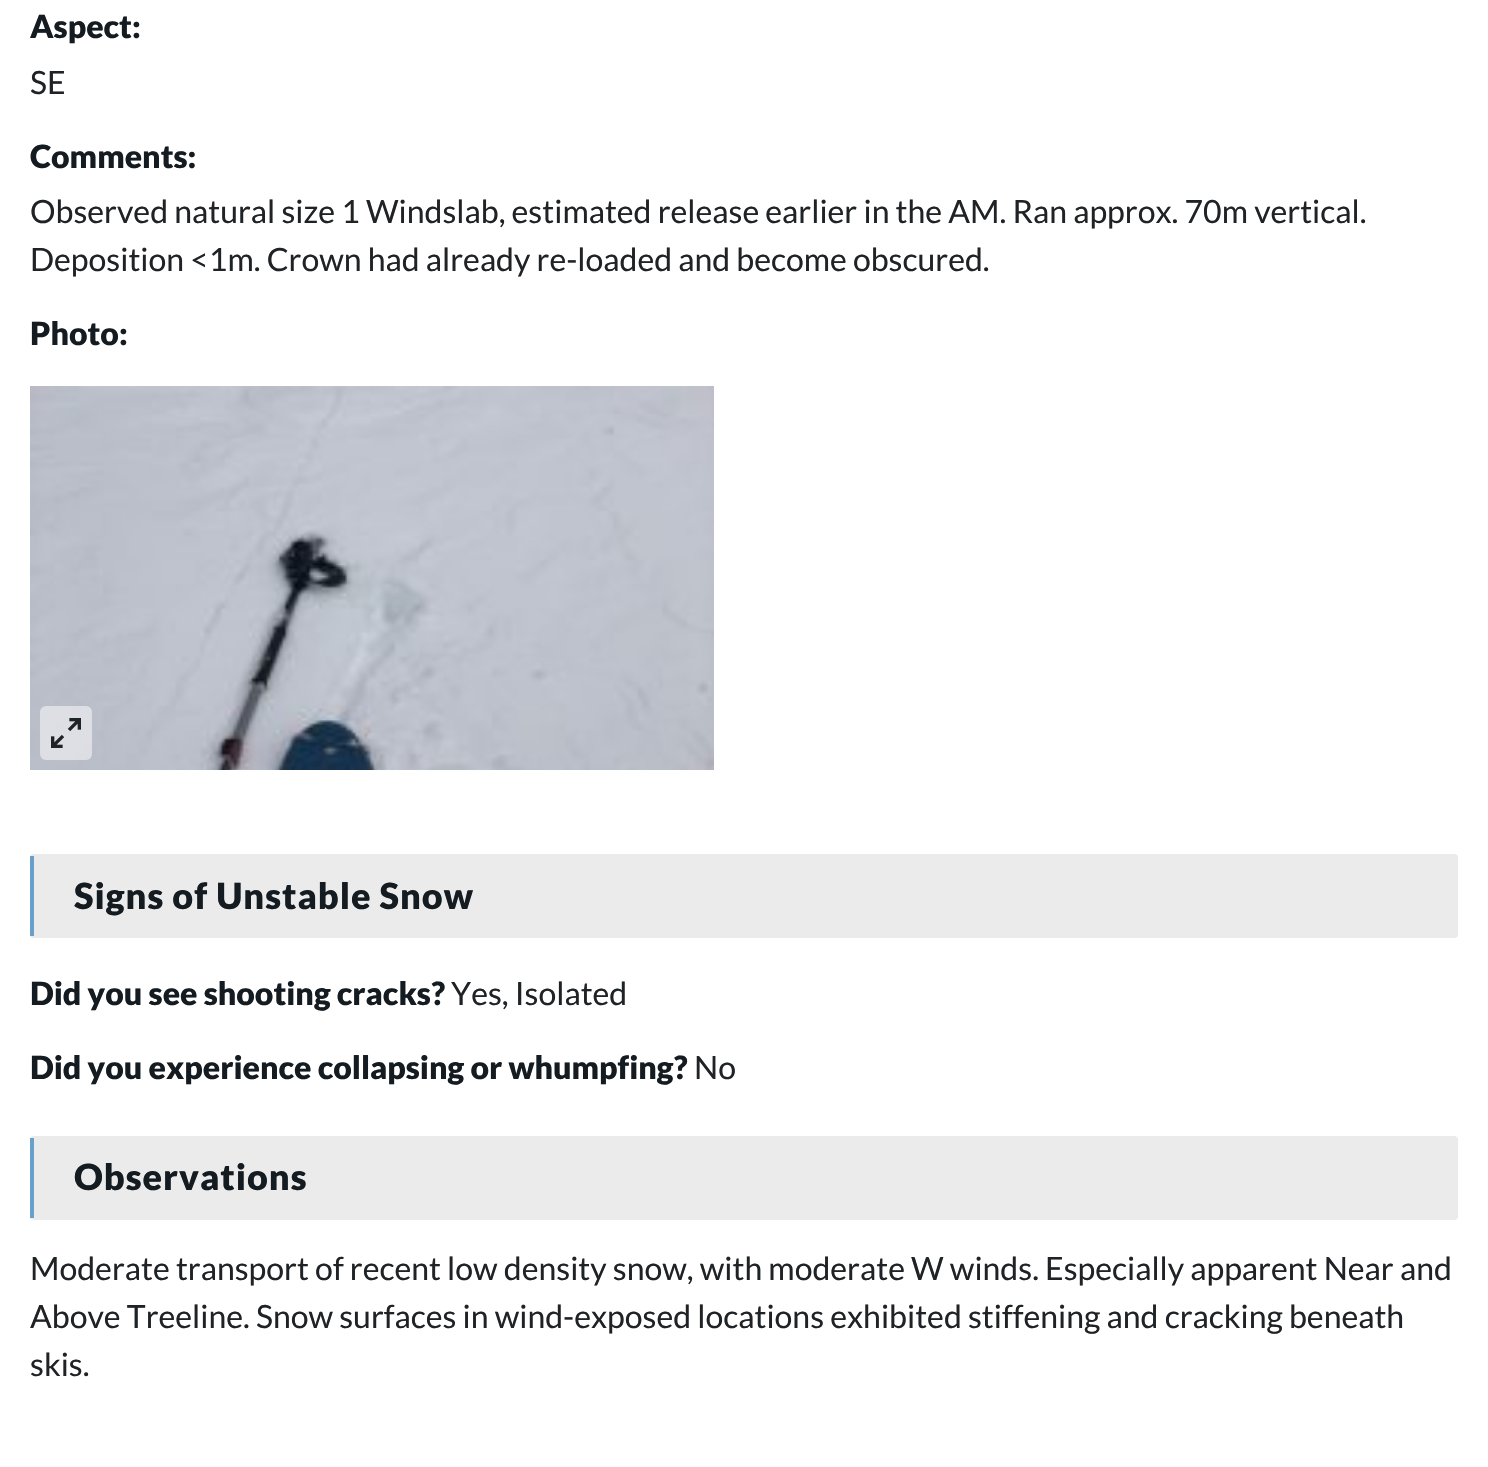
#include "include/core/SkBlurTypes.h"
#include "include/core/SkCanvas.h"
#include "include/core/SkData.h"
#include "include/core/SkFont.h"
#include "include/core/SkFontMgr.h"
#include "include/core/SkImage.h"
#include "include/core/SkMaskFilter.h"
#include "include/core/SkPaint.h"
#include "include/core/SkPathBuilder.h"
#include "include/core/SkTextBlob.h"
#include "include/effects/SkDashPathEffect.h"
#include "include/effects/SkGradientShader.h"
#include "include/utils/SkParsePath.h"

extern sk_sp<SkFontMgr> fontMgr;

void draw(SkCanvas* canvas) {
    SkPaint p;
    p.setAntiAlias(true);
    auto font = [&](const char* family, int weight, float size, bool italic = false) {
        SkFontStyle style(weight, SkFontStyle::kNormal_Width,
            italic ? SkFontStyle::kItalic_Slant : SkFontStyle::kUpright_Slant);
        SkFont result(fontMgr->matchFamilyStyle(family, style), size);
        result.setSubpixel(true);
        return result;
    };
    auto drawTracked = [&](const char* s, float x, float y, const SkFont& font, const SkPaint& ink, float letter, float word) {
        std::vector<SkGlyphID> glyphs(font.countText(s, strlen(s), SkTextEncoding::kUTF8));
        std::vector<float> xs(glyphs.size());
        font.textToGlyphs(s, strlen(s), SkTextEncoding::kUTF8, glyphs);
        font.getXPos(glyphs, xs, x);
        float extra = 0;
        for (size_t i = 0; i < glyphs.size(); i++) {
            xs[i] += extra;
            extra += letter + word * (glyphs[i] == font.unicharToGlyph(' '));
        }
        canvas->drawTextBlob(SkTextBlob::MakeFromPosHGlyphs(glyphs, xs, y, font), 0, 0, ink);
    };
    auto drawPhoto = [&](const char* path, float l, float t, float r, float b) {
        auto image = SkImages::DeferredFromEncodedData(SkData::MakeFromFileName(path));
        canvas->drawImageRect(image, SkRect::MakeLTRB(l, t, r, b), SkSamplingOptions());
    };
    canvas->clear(0xFFFFFFFF);
    auto font1 = font("Lato", 900, 32);
    p.setColor(0xFF141B21);
    canvas->drawString("Aspect:", 30, 38, font1, p);
    auto font2 = font("Lato", 400, 32);
    p.setColor(0xFF202326);
    canvas->drawString("SE", 30, 94, font2, p);
    p.setColor(0xFF141B21);
    canvas->drawString("Comments:", 30, 168, font1, p);
    p.setColor(0xFF202326);
    canvas->drawString("Observed natural size 1 Windslab, estimated release earlier in the AM. Ran approx. 70m vertical.", 30, 223, font2, p);
    canvas->drawString("Deposition <1m. Crown had already re-loaded and become obscured.", 30, 271, font2, p);
    p.setColor(0xFF141B21);
    canvas->drawString("Photo:", 30, 345, font1, p);
    drawPhoto("media/1.png", 30, 386, 714, 770);
    p.setColor(0x80FFFFFF);
    canvas->drawRoundRect(SkRect::MakeLTRB(40, 706, 92, 760), 6, 6, p);
    drawPhoto("media/2.png", 51, 718, 81, 748);
    p.setColor(0xFFEBEBEB);
    canvas->drawRoundRect(SkRect::MakeLTRB(30, 854, 1458, 938), 4, 4, p);
    p.setColor(0xFF68A0CC);
    canvas->drawRect(SkRect::MakeLTRB(30, 856, 34, 936), p);
    auto font3 = font("Lato", 900, 36);
    p.setColor(0xFF141B21);
    drawTracked("Signs of Unstable Snow", 74, 909, font3, p, 1, 0);
    canvas->drawString("Did you see shooting cracks?", 30, 1005, font1, p);
    p.setColor(0xFF202326);
    canvas->drawString("Yes, Isolated", 451, 1005, font2, p);
    p.setColor(0xFF141B21);
    canvas->drawString("Did you experience collapsing or whumpfing?", 30, 1079, font1, p);
    p.setColor(0xFF202326);
    canvas->drawString("No", 694, 1079, font2, p);
    p.setColor(0xFFEBEBEB);
    canvas->drawRoundRect(SkRect::MakeLTRB(30, 1136, 1458, 1220), 4, 4, p);
    p.setColor(0xFF68A0CC);
    canvas->drawRect(SkRect::MakeLTRB(30, 1138, 34, 1218), p);
    p.setColor(0xFF141B21);
    drawTracked("Observations", 74, 1190, font3, p, 1, 0);
    p.setColor(0xFF202326);
    {
        const struct { const char* s; float x, y; } items[] = {
            {"Moderate transport of recent low density snow, with moderate W winds. Especially apparent Near and", 30, 1280},
            {"Above Treeline. Snow surfaces in wind-exposed locations exhibited stiffening and cracking beneath", 30, 1328},
            {"skis.", 30, 1376},
        };
        for (auto [s, x, y] : items) {
            canvas->drawString(s, x, y, font2, p);
        }
    }
}
